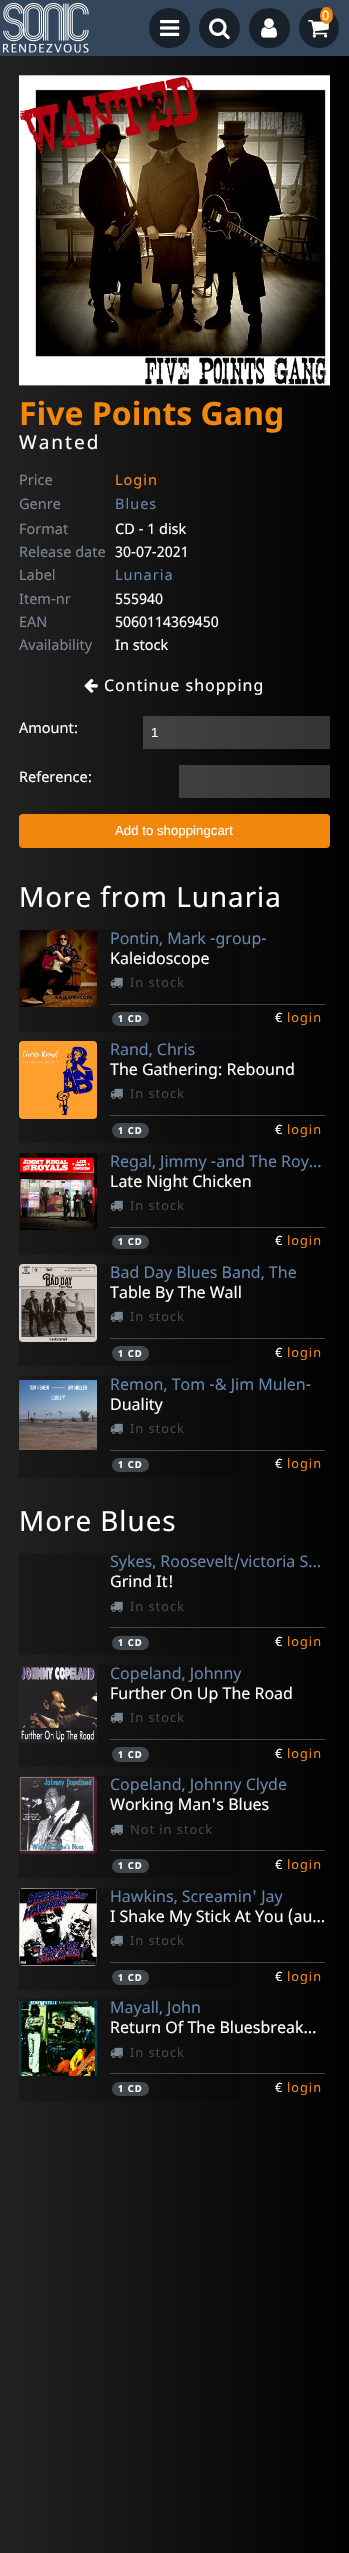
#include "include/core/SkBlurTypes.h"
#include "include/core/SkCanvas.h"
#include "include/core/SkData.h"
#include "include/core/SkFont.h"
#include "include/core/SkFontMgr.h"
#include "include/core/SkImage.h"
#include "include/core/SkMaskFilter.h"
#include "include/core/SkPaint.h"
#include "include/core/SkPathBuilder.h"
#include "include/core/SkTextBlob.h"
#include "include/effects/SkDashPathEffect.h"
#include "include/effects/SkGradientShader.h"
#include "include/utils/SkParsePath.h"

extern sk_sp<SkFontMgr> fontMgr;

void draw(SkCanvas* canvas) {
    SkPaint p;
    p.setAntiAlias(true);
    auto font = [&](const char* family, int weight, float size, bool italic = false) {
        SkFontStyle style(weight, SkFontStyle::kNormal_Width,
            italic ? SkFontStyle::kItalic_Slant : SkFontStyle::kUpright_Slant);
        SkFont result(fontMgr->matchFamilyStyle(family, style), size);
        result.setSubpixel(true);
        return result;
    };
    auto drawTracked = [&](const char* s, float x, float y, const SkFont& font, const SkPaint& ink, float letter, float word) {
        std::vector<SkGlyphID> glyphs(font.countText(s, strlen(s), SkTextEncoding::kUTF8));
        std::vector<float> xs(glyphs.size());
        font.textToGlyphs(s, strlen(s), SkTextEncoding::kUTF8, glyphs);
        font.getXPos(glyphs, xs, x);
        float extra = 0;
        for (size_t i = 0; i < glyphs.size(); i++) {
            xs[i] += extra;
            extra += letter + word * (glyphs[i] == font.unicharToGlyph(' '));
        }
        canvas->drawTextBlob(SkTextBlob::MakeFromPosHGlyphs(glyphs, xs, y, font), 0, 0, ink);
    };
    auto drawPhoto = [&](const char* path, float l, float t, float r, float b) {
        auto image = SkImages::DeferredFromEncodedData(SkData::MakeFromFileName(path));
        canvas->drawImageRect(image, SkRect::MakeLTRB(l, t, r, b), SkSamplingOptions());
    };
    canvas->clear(0xFFFFFFFF);
    {
        const SkColor colors[] = {0xFF222222, 0xFF000000};
        const float stops[] = {0, 1};
        const SkPoint ends[] = {{0, 1277}, {349, 1277}};
        p.setShader(SkGradientShader::MakeLinear(ends, colors, stops, 2, SkTileMode::kClamp));
        p.setAlpha(255);
    }
    canvas->drawRect(SkRect::MakeLTRB(0, 56, 349, 2553), p);
    {
        const SkColor colors[] = {0xFF1B1B1B, 0xFF000000};
        const float stops[] = {0, 1};
        const SkPoint ends[] = {{0, 1277}, {349, 1277}};
        p.setShader(SkGradientShader::MakeLinear(ends, colors, stops, 2, SkTileMode::kClamp));
        p.setAlpha(255);
    }
    canvas->drawRect(SkRect::MakeLTRB(19, 1999, 241, 2101), p);
    canvas->drawRect(SkRect::MakeLTRB(19, 1888, 241, 1990), p);
    canvas->drawRect(SkRect::MakeLTRB(19, 1776, 241, 1878), p);
    canvas->drawRect(SkRect::MakeLTRB(19, 1665, 241, 1767), p);
    canvas->drawRect(SkRect::MakeLTRB(19, 1553, 241, 1655), p);
    canvas->drawRect(SkRect::MakeLTRB(19, 1376, 241, 1478), p);
    canvas->drawRect(SkRect::MakeLTRB(19, 1264, 241, 1366), p);
    canvas->drawRect(SkRect::MakeLTRB(19, 1153, 241, 1255), p);
    canvas->drawRect(SkRect::MakeLTRB(19, 1041, 241, 1143), p);
    canvas->drawRect(SkRect::MakeLTRB(19, 930, 241, 1032), p);
    {
        const SkColor colors[] = {0xFF4E4E4E, 0xFF333333};
        const float stops[] = {0, 1};
        const SkPoint ends[] = {{0, 1277}, {349, 1277}};
        p.setShader(SkGradientShader::MakeLinear(ends, colors, stops, 2, SkTileMode::kClamp));
        p.setAlpha(255);
    }
    canvas->drawRect(SkRect::MakeLTRB(179, 765, 330, 798), p);
    canvas->drawRect(SkRect::MakeLTRB(143, 716, 330, 749), p);
    p.setShader(nullptr);
    p.setColor(0xFF33465B);
    canvas->drawRect(SkRect::MakeLTRB(0, 0, 349, 56), p);
    drawPhoto("media/1.png", 3, 3, 89, 53);
    p.setColor(0xFF18212A);
    canvas->drawRoundRect(SkRect::MakeLTRB(149, 8, 190, 48), 20, 20, p);
    drawPhoto("media/2.png", 160, 20, 180, 36);
    canvas->drawRoundRect(SkRect::MakeLTRB(199, 8, 240, 48), 20, 20, p);
    drawPhoto("media/3.png", 209, 18, 230, 40);
    canvas->drawRoundRect(SkRect::MakeLTRB(249, 8, 290, 48), 20, 20, p);
    drawPhoto("media/4.png", 261, 18, 277, 38);
    canvas->drawCircle(319, 28, 20, p);
    drawPhoto("media/5.png", 308, 20, 329, 38);
    p.setColor(0xFFF2870D);
    canvas->drawOval(SkRect::MakeLTRB(320, 7, 333, 24), p);
    auto font1 = font("Noto Sans", 400, 13);
    p.setColor(0xFFFFFFFF);
    drawTracked("0", 322, 20, font1, p, 1, 0);
    drawPhoto("media/6.png", 19, 75, 330, 386);
    auto font2 = font("Noto Sans", 700, 32);
    p.setColor(0xFFF2870D);
    canvas->drawString("Five Points Gang", 19, 425, font2, p);
    auto font3 = font("Noto Sans", 400, 19);
    p.setColor(0xFFFFFFFF);
    drawTracked("Wanted", 19, 449, font3, p, 2, 0);
    auto font4 = font("Noto Sans", 400, 14.5f);
    p.setColor(0xFF7B8693);
    canvas->drawString("Price", 19, 485, font4, p);
    p.setColor(0xFFF2870D);
    drawTracked("Login", 115, 485, font4, p, 1, 0);
    p.setColor(0xFF7B8693);
    canvas->drawString("Genre", 19, 509, font4, p);
    p.setColor(0xFF6685A9);
    drawTracked("Blues", 115, 509, font4, p, 1, 0);
    p.setColor(0xFF7B8693);
    canvas->drawString("Format", 19, 534, font4, p);
    p.setColor(0xFFFFFFFF);
    canvas->drawString("CD - 1 disk", 115, 534, font4, p);
    p.setColor(0xFF7B8693);
    canvas->drawString("Release date", 19, 557, font4, p);
    p.setColor(0xFFFFFFFF);
    canvas->drawString("30-07-2021", 115, 557, font4, p);
    p.setColor(0xFF7B8693);
    canvas->drawString("Label", 19, 580, font4, p);
    p.setColor(0xFF6685A9);
    drawTracked("Lunaria", 115, 580, font4, p, 1, 0);
    p.setColor(0xFF7B8693);
    canvas->drawString("Item-nr", 19, 604, font4, p);
    p.setColor(0xFFFFFFFF);
    canvas->drawString("555940", 115, 604, font4, p);
    p.setColor(0xFF7B8693);
    canvas->drawString("EAN", 19, 627, font4, p);
    p.setColor(0xFFFFFFFF);
    canvas->drawString("5060114369450", 115, 627, font4, p);
    p.setColor(0xFF7B8693);
    canvas->drawString("Availability", 19, 650, font4, p);
    p.setColor(0xFFFFFFFF);
    canvas->drawString("In stock", 115, 650, font4, p);
    drawPhoto("media/7.png", 84, 678, 98, 693);
    auto font5 = font("Noto Sans", 400, 16);
    drawTracked("Continue shopping", 104, 691, font5, p, 1, 0);
    canvas->drawString("Amount:", 19, 733, font4, p);
    auto font6 = font("Liberation Sans", 400, 13.25f);
    canvas->drawString("1", 151, 737, font6, p);
    canvas->drawString("Reference:", 19, 782, font4, p);
    p.setColor(0xFFF2870D);
    canvas->drawRoundRect(SkRect::MakeLTRB(19, 814, 330, 848), 4, 4, p);
    p.setColor(0xFFFFFFFF);
    canvas->drawString("Add to shoppingcart", 115, 835, font6, p);
    auto font7 = font("Noto Sans", 400, 27.75f);
    drawTracked("More from Lunaria", 19, 907, font7, p, 1, 0);
    drawPhoto("media/8.png", 20, 930, 97, 1007);
    p.setColor(0xFF6685A9);
    canvas->drawString("Pontin, Mark -group-", 110, 944, font5, p);
    p.setColor(0xFFFFFFFF);
    canvas->drawString("Kaleidoscope", 110, 964, font5, p);
    drawPhoto("media/9.png", 110, 977, 123, 988);
    auto font8 = font("Noto Sans", 400, 12.75f);
    p.setColor(0xFF40474F);
    drawTracked("In stock", 130, 987, font8, p, 1, 0);
    canvas->drawRect(SkRect::MakeLTRB(110, 1004, 325, 1005), p);
    canvas->drawRoundRect(SkRect::MakeLTRB(112, 1012, 149, 1026), 7, 7, p);
    auto font9 = font("Noto Sans", 700, 9.5f);
    p.setColor(0xFFFFFFFF);
    drawTracked("1 CD", 118, 1022, font9, p, 1, 0);
    drawTracked("€", 275, 1022, font8, p, 1, 0);
    p.setColor(0xFFF2870D);
    drawTracked("login", 287, 1022, font8, p, 1, 0);
    drawPhoto("media/10.png", 19, 1041, 97, 1119);
    p.setColor(0xFF6685A9);
    canvas->drawString("Rand, Chris", 110, 1055, font5, p);
    p.setColor(0xFFFFFFFF);
    canvas->drawString("The Gathering: Rebound", 110, 1075, font5, p);
    drawPhoto("media/9.png", 110, 1088, 123, 1099);
    p.setColor(0xFF40474F);
    drawTracked("In stock", 130, 1098, font8, p, 1, 0);
    canvas->drawRect(SkRect::MakeLTRB(110, 1115, 325, 1116), p);
    canvas->drawRoundRect(SkRect::MakeLTRB(112, 1123, 149, 1138), 7.5f, 7.5f, p);
    p.setColor(0xFFFFFFFF);
    drawTracked("1 CD", 118, 1134, font9, p, 1, 0);
    drawTracked("€", 275, 1134, font8, p, 1, 0);
    p.setColor(0xFFF2870D);
    drawTracked("login", 287, 1134, font8, p, 1, 0);
    drawPhoto("media/11.png", 20, 1153, 97, 1230);
    p.setColor(0xFF6685A9);
    canvas->drawString("Regal, Jimmy -and The Roy…", 110, 1167, font5, p);
    p.setColor(0xFFFFFFFF);
    canvas->drawString("Late Night Chicken", 110, 1187, font5, p);
    drawPhoto("media/9.png", 110, 1200, 123, 1211);
    p.setColor(0xFF40474F);
    drawTracked("In stock", 130, 1210, font8, p, 1, 0);
    canvas->drawRect(SkRect::MakeLTRB(110, 1227, 325, 1228), p);
    canvas->drawRoundRect(SkRect::MakeLTRB(112, 1235, 149, 1249), 7, 7, p);
    p.setColor(0xFFFFFFFF);
    drawTracked("1 CD", 118, 1245, font9, p, 1, 0);
    drawTracked("€", 275, 1245, font8, p, 1, 0);
    p.setColor(0xFFF2870D);
    drawTracked("login", 287, 1245, font8, p, 1, 0);
    drawPhoto("media/12.png", 19, 1264, 97, 1342);
    p.setColor(0xFF6685A9);
    canvas->drawString("Bad Day Blues Band, The", 110, 1278, font5, p);
    p.setColor(0xFFFFFFFF);
    canvas->drawString("Table By The Wall", 110, 1298, font5, p);
    drawPhoto("media/9.png", 110, 1311, 123, 1322);
    p.setColor(0xFF40474F);
    drawTracked("In stock", 130, 1321, font8, p, 1, 0);
    canvas->drawRect(SkRect::MakeLTRB(110, 1338, 325, 1339), p);
    canvas->drawRoundRect(SkRect::MakeLTRB(112, 1346, 149, 1361), 7.5f, 7.5f, p);
    p.setColor(0xFFFFFFFF);
    drawTracked("1 CD", 118, 1357, font9, p, 1, 0);
    drawTracked("€", 275, 1357, font8, p, 1, 0);
    p.setColor(0xFFF2870D);
    drawTracked("login", 287, 1357, font8, p, 1, 0);
    drawPhoto("media/13.png", 19, 1380, 97, 1450);
    p.setColor(0xFF6685A9);
    canvas->drawString("Remon, Tom -& Jim Mulen-", 110, 1390, font5, p);
    p.setColor(0xFFFFFFFF);
    canvas->drawString("Duality", 110, 1410, font5, p);
    drawPhoto("media/9.png", 110, 1423, 123, 1434);
    p.setColor(0xFF40474F);
    drawTracked("In stock", 130, 1433, font8, p, 1, 0);
    canvas->drawRect(SkRect::MakeLTRB(110, 1450, 325, 1451), p);
    canvas->drawRoundRect(SkRect::MakeLTRB(112, 1458, 149, 1472), 7, 7, p);
    p.setColor(0xFFFFFFFF);
    drawTracked("1 CD", 118, 1468, font9, p, 1, 0);
    drawTracked("€", 275, 1468, font8, p, 1, 0);
    p.setColor(0xFFF2870D);
    drawTracked("login", 287, 1468, font8, p, 1, 0);
    p.setColor(0xFFFFFFFF);
    drawTracked("More Blues", 19, 1531, font7, p, 1, 0);
    p.setColor(0xFF6685A9);
    canvas->drawString("Sykes, Roosevelt/victoria S…", 110, 1567, font5, p);
    p.setColor(0xFFFFFFFF);
    canvas->drawString("Grind It!", 110, 1587, font5, p);
    drawPhoto("media/9.png", 110, 1601, 123, 1612);
    p.setColor(0xFF40474F);
    drawTracked("In stock", 130, 1611, font8, p, 1, 0);
    canvas->drawRect(SkRect::MakeLTRB(110, 1627, 325, 1628), p);
    canvas->drawRoundRect(SkRect::MakeLTRB(112, 1636, 149, 1650), 7, 7, p);
    p.setColor(0xFFFFFFFF);
    drawTracked("1 CD", 118, 1646, font9, p, 1, 0);
    drawTracked("€", 275, 1646, font8, p, 1, 0);
    p.setColor(0xFFF2870D);
    drawTracked("login", 287, 1646, font8, p, 1, 0);
    drawPhoto("media/14.png", 19, 1665, 97, 1743);
    p.setColor(0xFF6685A9);
    canvas->drawString("Copeland, Johnny", 110, 1679, font5, p);
    p.setColor(0xFFFFFFFF);
    canvas->drawString("Further On Up The Road", 110, 1699, font5, p);
    drawPhoto("media/9.png", 110, 1712, 123, 1723);
    p.setColor(0xFF40474F);
    drawTracked("In stock", 130, 1722, font8, p, 1, 0);
    canvas->drawRect(SkRect::MakeLTRB(110, 1739, 325, 1740), p);
    canvas->drawRoundRect(SkRect::MakeLTRB(112, 1747, 149, 1762), 7.5f, 7.5f, p);
    p.setColor(0xFFFFFFFF);
    drawTracked("1 CD", 118, 1758, font9, p, 1, 0);
    drawTracked("€", 275, 1758, font8, p, 1, 0);
    p.setColor(0xFFF2870D);
    drawTracked("login", 287, 1758, font8, p, 1, 0);
    drawPhoto("media/15.png", 19, 1776, 97, 1854);
    p.setColor(0xFF6685A9);
    canvas->drawString("Copeland, Johnny Clyde", 110, 1790, font5, p);
    p.setColor(0xFFFFFFFF);
    canvas->drawString("Working Man's Blues", 110, 1810, font5, p);
    drawPhoto("media/9.png", 110, 1824, 123, 1835);
    p.setColor(0xFF40474F);
    drawTracked("Not in stock", 130, 1834, font8, p, 1, 0);
    canvas->drawRect(SkRect::MakeLTRB(110, 1850, 325, 1851), p);
    canvas->drawRoundRect(SkRect::MakeLTRB(112, 1859, 149, 1873), 7, 7, p);
    p.setColor(0xFFFFFFFF);
    drawTracked("1 CD", 118, 1869, font9, p, 1, 0);
    drawTracked("€", 275, 1869, font8, p, 1, 0);
    p.setColor(0xFFF2870D);
    drawTracked("login", 287, 1869, font8, p, 1, 0);
    drawPhoto("media/16.png", 19, 1888, 97, 1966);
    p.setColor(0xFF6685A9);
    canvas->drawString("Hawkins, Screamin' Jay", 110, 1902, font5, p);
    p.setColor(0xFFFFFFFF);
    canvas->drawString("I Shake My Stick At You (au…", 110, 1922, font5, p);
    drawPhoto("media/9.png", 110, 1935, 123, 1946);
    p.setColor(0xFF40474F);
    drawTracked("In stock", 130, 1945, font8, p, 1, 0);
    canvas->drawRect(SkRect::MakeLTRB(110, 1962, 325, 1963), p);
    canvas->drawRoundRect(SkRect::MakeLTRB(112, 1970, 149, 1985), 7.5f, 7.5f, p);
    p.setColor(0xFFFFFFFF);
    drawTracked("1 CD", 118, 1981, font9, p, 1, 0);
    drawTracked("€", 275, 1981, font8, p, 1, 0);
    p.setColor(0xFFF2870D);
    drawTracked("login", 287, 1981, font8, p, 1, 0);
    drawPhoto("media/17.png", 19, 2001, 97, 2076);
    p.setColor(0xFF6685A9);
    canvas->drawString("Mayall, John", 110, 2013, font5, p);
    p.setColor(0xFFFFFFFF);
    canvas->drawString("Return Of The Bluesbreak…", 110, 2033, font5, p);
    drawPhoto("media/9.png", 110, 2047, 123, 2058);
    p.setColor(0xFF40474F);
    drawTracked("In stock", 130, 2057, font8, p, 1, 0);
    canvas->drawRect(SkRect::MakeLTRB(110, 2073, 325, 2074), p);
    canvas->drawRoundRect(SkRect::MakeLTRB(112, 2082, 149, 2096), 7, 7, p);
    p.setColor(0xFFFFFFFF);
    drawTracked("1 CD", 118, 2092, font9, p, 1, 0);
    drawTracked("€", 275, 2092, font8, p, 1, 0);
    p.setColor(0xFFF2870D);
    drawTracked("login", 287, 2092, font8, p, 1, 0);
}
